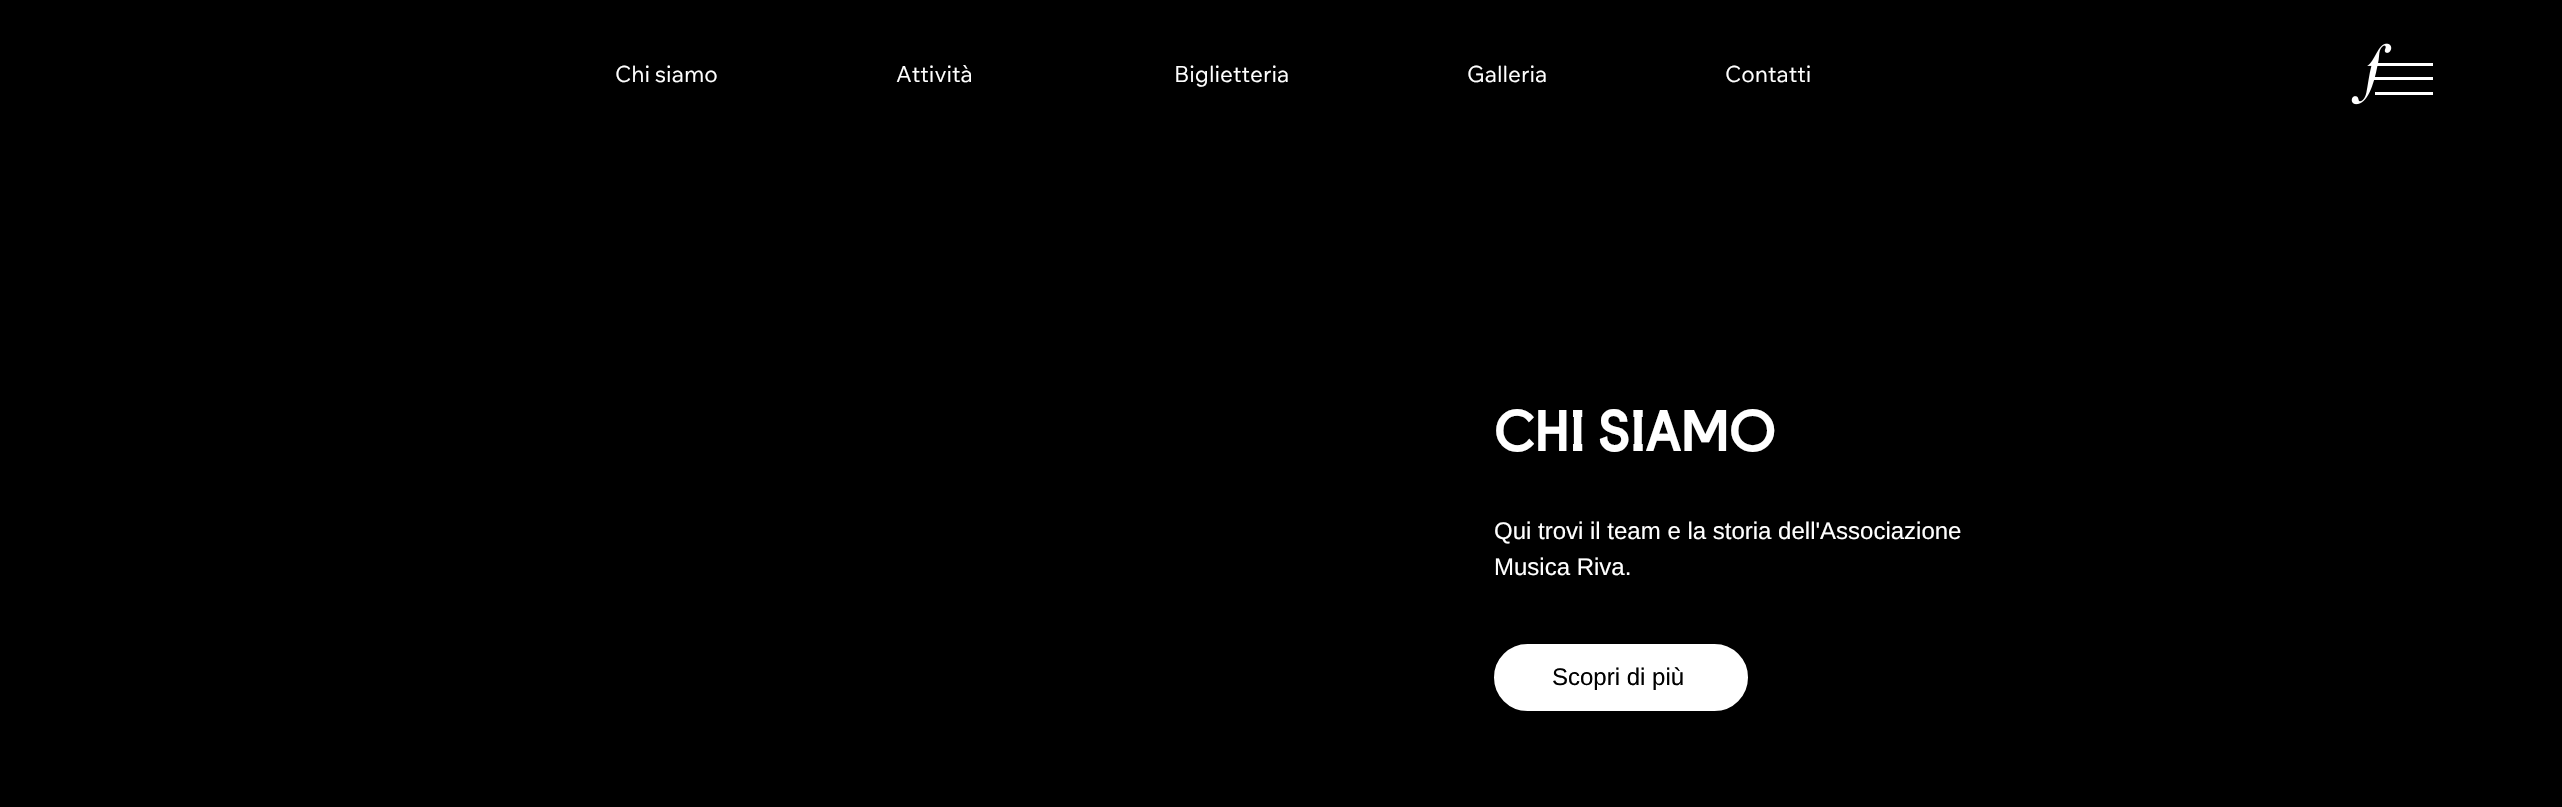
#include "include/core/SkBlurTypes.h"
#include "include/core/SkCanvas.h"
#include "include/core/SkData.h"
#include "include/core/SkFont.h"
#include "include/core/SkFontMgr.h"
#include "include/core/SkImage.h"
#include "include/core/SkMaskFilter.h"
#include "include/core/SkPaint.h"
#include "include/core/SkPathBuilder.h"
#include "include/core/SkTextBlob.h"
#include "include/effects/SkDashPathEffect.h"
#include "include/effects/SkGradientShader.h"
#include "include/utils/SkParsePath.h"

extern sk_sp<SkFontMgr> fontMgr;

void draw(SkCanvas* canvas) {
    SkPaint p;
    p.setAntiAlias(true);
    auto font = [&](const char* family, int weight, float size, bool italic = false) {
        SkFontStyle style(weight, SkFontStyle::kNormal_Width,
            italic ? SkFontStyle::kItalic_Slant : SkFontStyle::kUpright_Slant);
        SkFont result(fontMgr->matchFamilyStyle(family, style), size);
        result.setSubpixel(true);
        return result;
    };
    auto drawPhoto = [&](const char* path, float l, float t, float r, float b) {
        auto image = SkImages::DeferredFromEncodedData(SkData::MakeFromFileName(path));
        canvas->drawImageRect(image, SkRect::MakeLTRB(l, t, r, b), SkSamplingOptions());
    };
    canvas->clear(0xFF000000);
    auto font1 = font("Wix Madefor Text", 400, 22.5f);
    p.setColor(0xFFFFFFFF);
    {
        const struct { const char* s; float x, y; } items[] = {
            {"Chi siamo", 615, 82},
            {"Attività", 896, 82},
            {"Biglietteria", 1174, 82},
            {"Galleria", 1467, 82},
            {"Contatti", 1725, 82},
        };
        for (auto [s, x, y] : items) {
            canvas->drawString(s, x, y, font1, p);
        }
    }
    drawPhoto("media/1.png", 2351, 43, 2433, 105);
    auto font2 = font("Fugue", 700, 54);
    canvas->drawString("CHI SIAMO", 1494, 451, font2, p);
    auto font3 = font("Liberation Sans", 400, 24);
    canvas->drawString("Qui trovi il team e la storia dell'Associazione", 1494, 539, font3, p);
    canvas->drawString("Musica Riva.", 1494, 575, font3, p);
    canvas->drawRoundRect(SkRect::MakeLTRB(1495, 645, 1747, 710), 32.5f, 32.5f, p);
    p.setStyle(SkPaint::kStroke_Style);
    p.setStrokeWidth(2);
    canvas->drawRoundRect(SkRect::MakeLTRB(1495, 645, 1747, 710), 32.5f, 32.5f, p);
    p.setStyle(SkPaint::kFill_Style);
    p.setColor(0xFF000000);
    canvas->drawString("Scopri di più", 1552, 685, font3, p);
}
